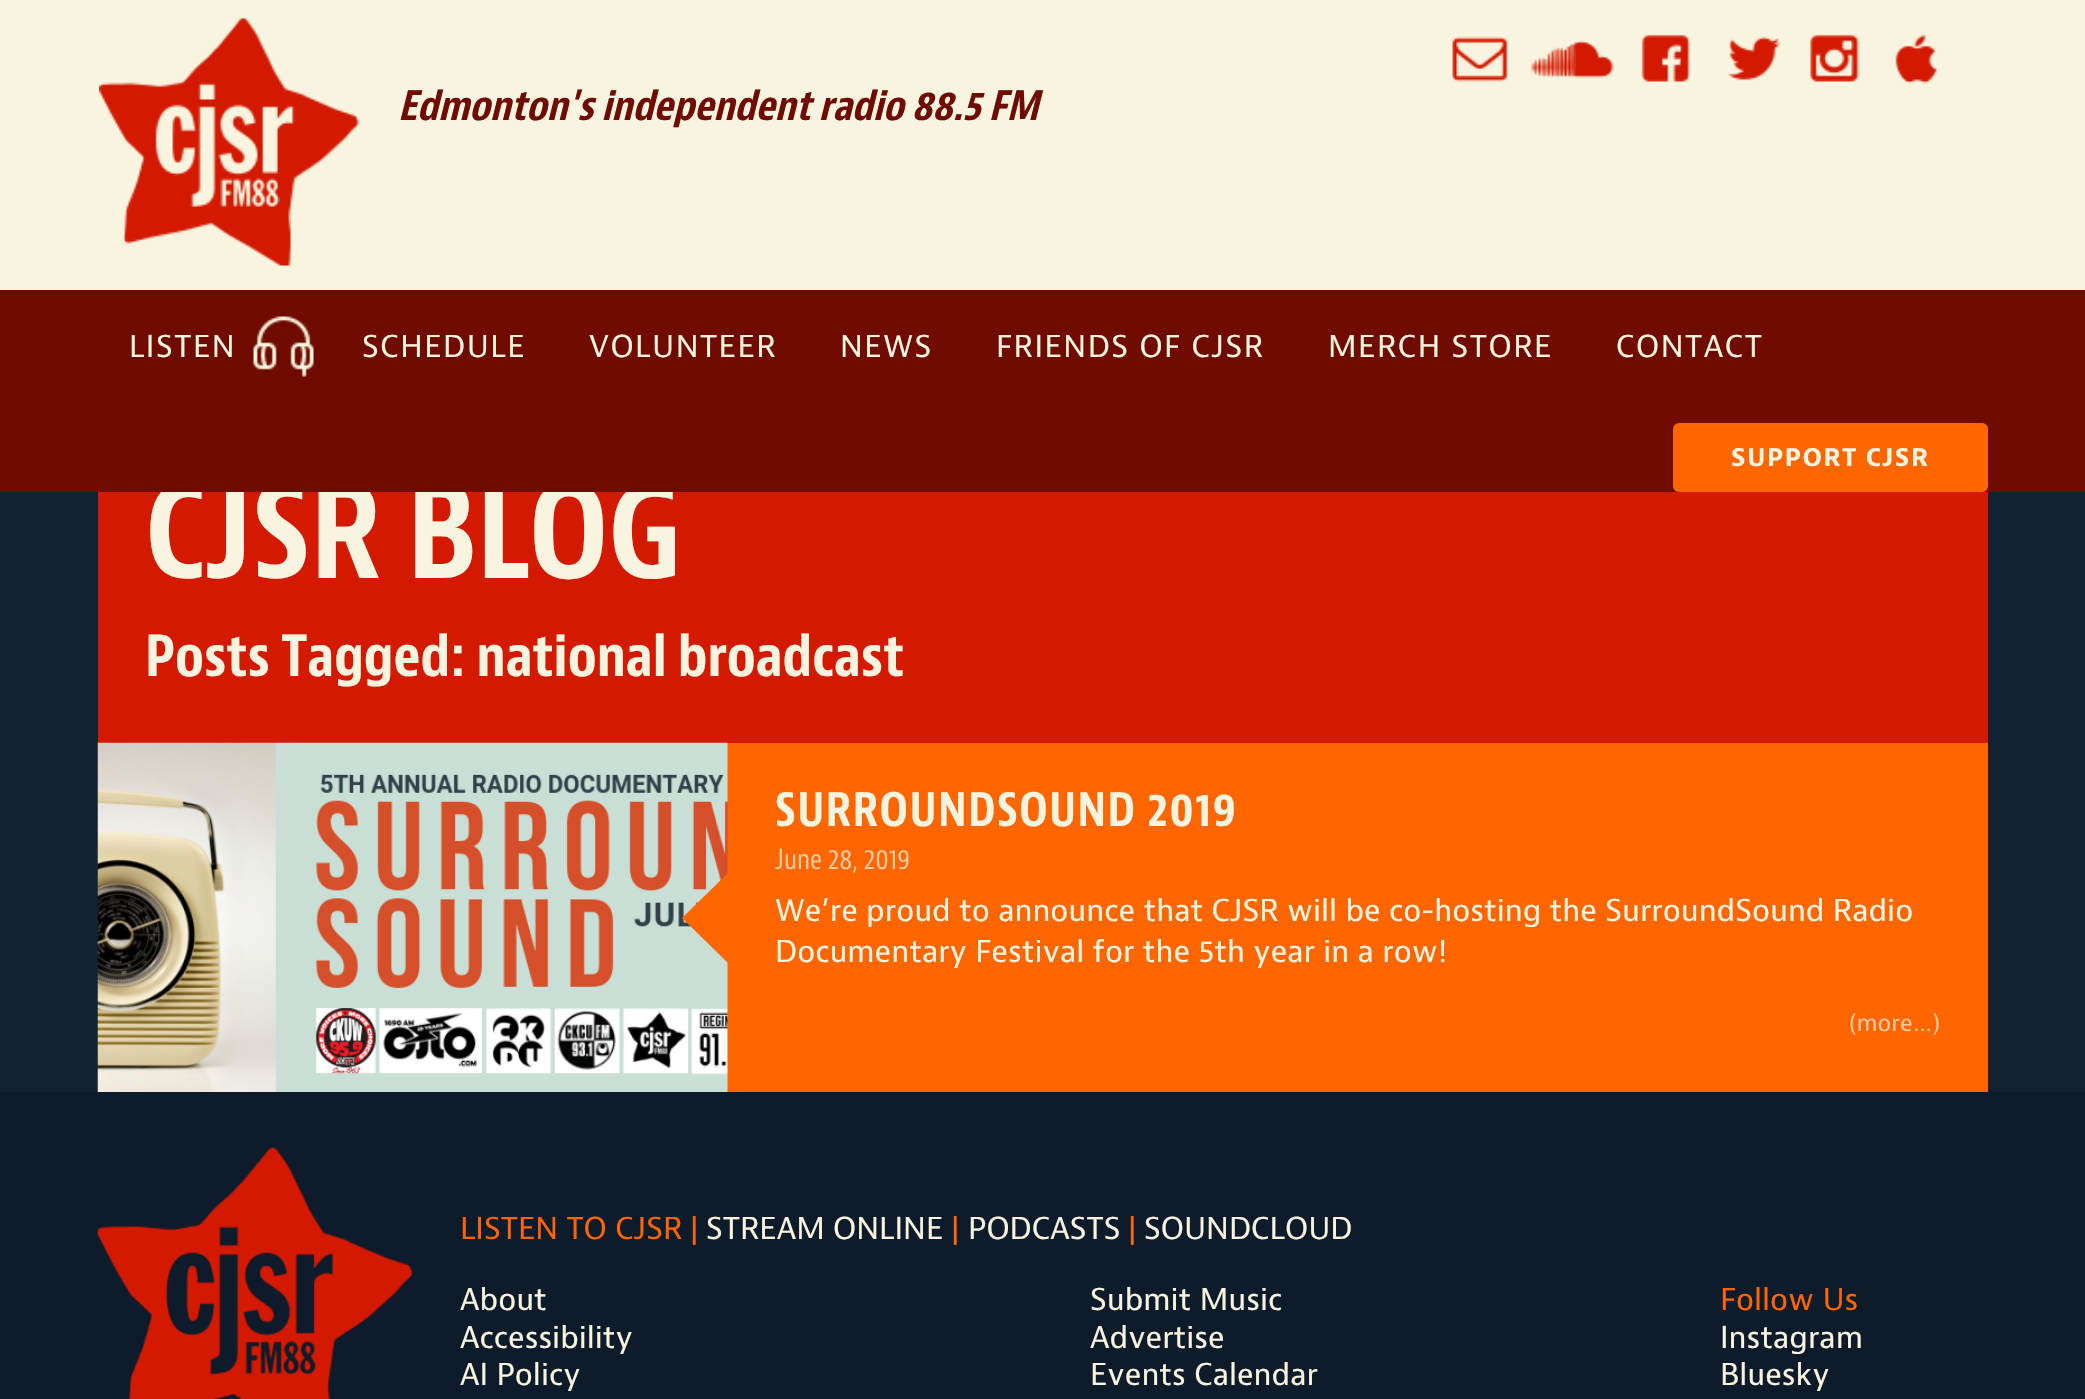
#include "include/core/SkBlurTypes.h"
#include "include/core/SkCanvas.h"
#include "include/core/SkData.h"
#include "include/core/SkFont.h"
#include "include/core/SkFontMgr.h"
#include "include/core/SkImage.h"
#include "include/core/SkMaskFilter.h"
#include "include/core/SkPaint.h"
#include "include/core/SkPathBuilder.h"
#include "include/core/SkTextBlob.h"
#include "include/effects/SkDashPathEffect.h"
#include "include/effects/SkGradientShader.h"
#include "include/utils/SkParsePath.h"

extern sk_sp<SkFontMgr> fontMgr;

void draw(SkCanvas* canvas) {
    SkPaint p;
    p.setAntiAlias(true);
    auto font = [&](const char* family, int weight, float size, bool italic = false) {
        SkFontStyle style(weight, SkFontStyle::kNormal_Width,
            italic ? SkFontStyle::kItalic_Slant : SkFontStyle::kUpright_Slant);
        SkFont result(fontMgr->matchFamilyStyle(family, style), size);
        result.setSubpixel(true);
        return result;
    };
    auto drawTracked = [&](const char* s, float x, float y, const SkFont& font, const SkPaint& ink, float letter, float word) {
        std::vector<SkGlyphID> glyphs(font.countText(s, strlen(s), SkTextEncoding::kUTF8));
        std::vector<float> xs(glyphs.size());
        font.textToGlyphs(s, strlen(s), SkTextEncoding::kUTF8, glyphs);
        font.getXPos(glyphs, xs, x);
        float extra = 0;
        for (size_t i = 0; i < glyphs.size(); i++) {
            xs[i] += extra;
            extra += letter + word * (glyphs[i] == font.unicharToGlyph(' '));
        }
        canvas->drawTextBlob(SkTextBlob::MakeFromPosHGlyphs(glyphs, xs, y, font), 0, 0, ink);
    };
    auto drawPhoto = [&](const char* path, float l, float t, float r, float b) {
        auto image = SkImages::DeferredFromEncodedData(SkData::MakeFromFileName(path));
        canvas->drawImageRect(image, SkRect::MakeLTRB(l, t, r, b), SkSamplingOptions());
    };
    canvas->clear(0xFF122233);
    p.setColor(0xFFF8F4DF);
    canvas->drawRect(SkRect::MakeLTRB(0, 0, 2085, 290), p);
    drawPhoto("media/1.png", 99, 18, 359, 266);
    drawPhoto("media/2.png", 1452, 36, 1508, 82);
    drawPhoto("media/3.png", 1530, 40, 1614, 79);
    drawPhoto("media/4.png", 1641, 34, 1690, 82);
    drawPhoto("media/5.png", 1728, 36, 1781, 81);
    drawPhoto("media/6.png", 1810, 34, 1860, 82);
    drawPhoto("media/7.png", 1895, 34, 1937, 84);
    auto font1 = font("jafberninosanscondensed", 700, 39.4f, true);
    p.setColor(0xFF6F0B00);
    canvas->drawString("Edmonton's independent radio 88.5 FM", 398, 120, font1, p);
    p.setColor(0xFFD31900);
    canvas->drawRect(SkRect::MakeLTRB(98, 492, 1988, 743), p);
    auto font2 = font("jafberninosanscondensed", 700, 126);
    p.setColor(0xFFF8F4DF);
    canvas->drawString("CJSR BLOG", 145, 578, font2, p);
    p.setColor(0xFF6F0B00);
    canvas->drawRect(SkRect::MakeLTRB(0, 290, 2085, 492), p);
    drawPhoto("media/8.png", 253, 316, 314, 377);
    auto font3 = font("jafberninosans", 400, 31.5f);
    p.setColor(0xFFF8F4DF);
    {
        const struct { const char* s; float x, y; } items[] = {
            {"LISTEN", 129, 357},
            {"SCHEDULE", 362, 357},
            {"VOLUNTEER", 589, 357},
            {"NEWS", 840, 357},
            {"FRIENDS OF CJSR", 996, 357},
            {"MERCH STORE", 1328, 357},
            {"CONTACT", 1616, 357},
        };
        for (auto [s, x, y] : items) {
            drawTracked(s, x, y, font3, p, 1.5f, 0);
        }
    }
    p.setColor(0xFFFF6600);
    canvas->drawRoundRect(SkRect::MakeLTRB(1673, 423, 1988, 492), 6, 6, p);
    auto font4 = font("jafberninosans", 700, 25.25f);
    p.setColor(0xFFF8F4DF);
    drawTracked("SUPPORT CJSR", 1731, 466, font4, p, 1.5f, 0);
    p.setColor(0xFFFF6600);
    canvas->drawRect(SkRect::MakeLTRB(727, 743, 1988, 1092), p);
    auto font5 = font("jafberninosanscondensed", 700, 55.1f);
    p.setColor(0xFFF8F4DF);
    canvas->drawString("Posts Tagged: national broadcast", 145, 676, font5, p);
    drawPhoto("media/9.png", 97, 742, 728, 1092);
    auto font6 = font("jafberninosanscondensed", 700, 45);
    drawTracked("SURROUNDSOUND 2019", 775, 826, font6, p, 1.5f, 0);
    auto font7 = font("jafberninosanscondensed", 400, 27);
    p.setColor(0xFFFAC99C);
    canvas->drawString("June 28, 2019", 775, 869, font7, p);
    p.setColor(0xFFFF6600);
    canvas->drawPath(SkPathBuilder().moveTo(728, 873).lineTo(728, 963).lineTo(682, 918).close().detach(), p);
    p.setColor(0xFFF8F4DF);
    canvas->drawString("We’re proud to announce that CJSR will be co-hosting the SurroundSound Radio", 775, 921, font3, p);
    canvas->drawString("Documentary Festival for the 5th year in a row!", 775, 962, font3, p);
    auto font8 = font("jafberninosans", 400, 24);
    p.setColor(0xFFFAC99C);
    canvas->drawString("(more…)", 1849, 1031, font8, p);
    p.setColor(0xFF0E1B2A);
    canvas->drawRect(SkRect::MakeLTRB(0, 1092, 2085, 1399), p);
    drawPhoto("media/10.png", 97, 1147, 413, 1399);
    p.setColor(0xFFFF6600);
    canvas->drawString("LISTEN TO CJSR", 460, 1239, font3, p);
    canvas->drawString("|", 690, 1239, font3, p);
    p.setColor(0xFFF8F4DF);
    canvas->drawString("STREAM ONLINE", 706, 1239, font3, p);
    p.setColor(0xFFFF6600);
    canvas->drawString("|", 951, 1239, font3, p);
    p.setColor(0xFFF8F4DF);
    canvas->drawString("PODCASTS", 968, 1239, font3, p);
    p.setColor(0xFFFF6600);
    canvas->drawString("|", 1128, 1239, font3, p);
    p.setColor(0xFFF8F4DF);
    {
        const struct { const char* s; float x, y; } items[] = {
            {"SOUNDCLOUD", 1144, 1239},
            {"About", 460, 1310},
            {"Accessibility", 460, 1348},
            {"AI Policy", 460, 1385},
            {"Submit Music", 1090, 1310},
            {"Advertise", 1090, 1348},
            {"Events Calendar", 1090, 1385},
        };
        for (auto [s, x, y] : items) {
            canvas->drawString(s, x, y, font3, p);
        }
    }
    p.setColor(0xFFFF6600);
    canvas->drawString("Follow Us", 1720, 1310, font3, p);
    p.setColor(0xFFF8F4DF);
    canvas->drawString("Instagram", 1720, 1348, font3, p);
    canvas->drawString("Bluesky", 1720, 1385, font3, p);
}
